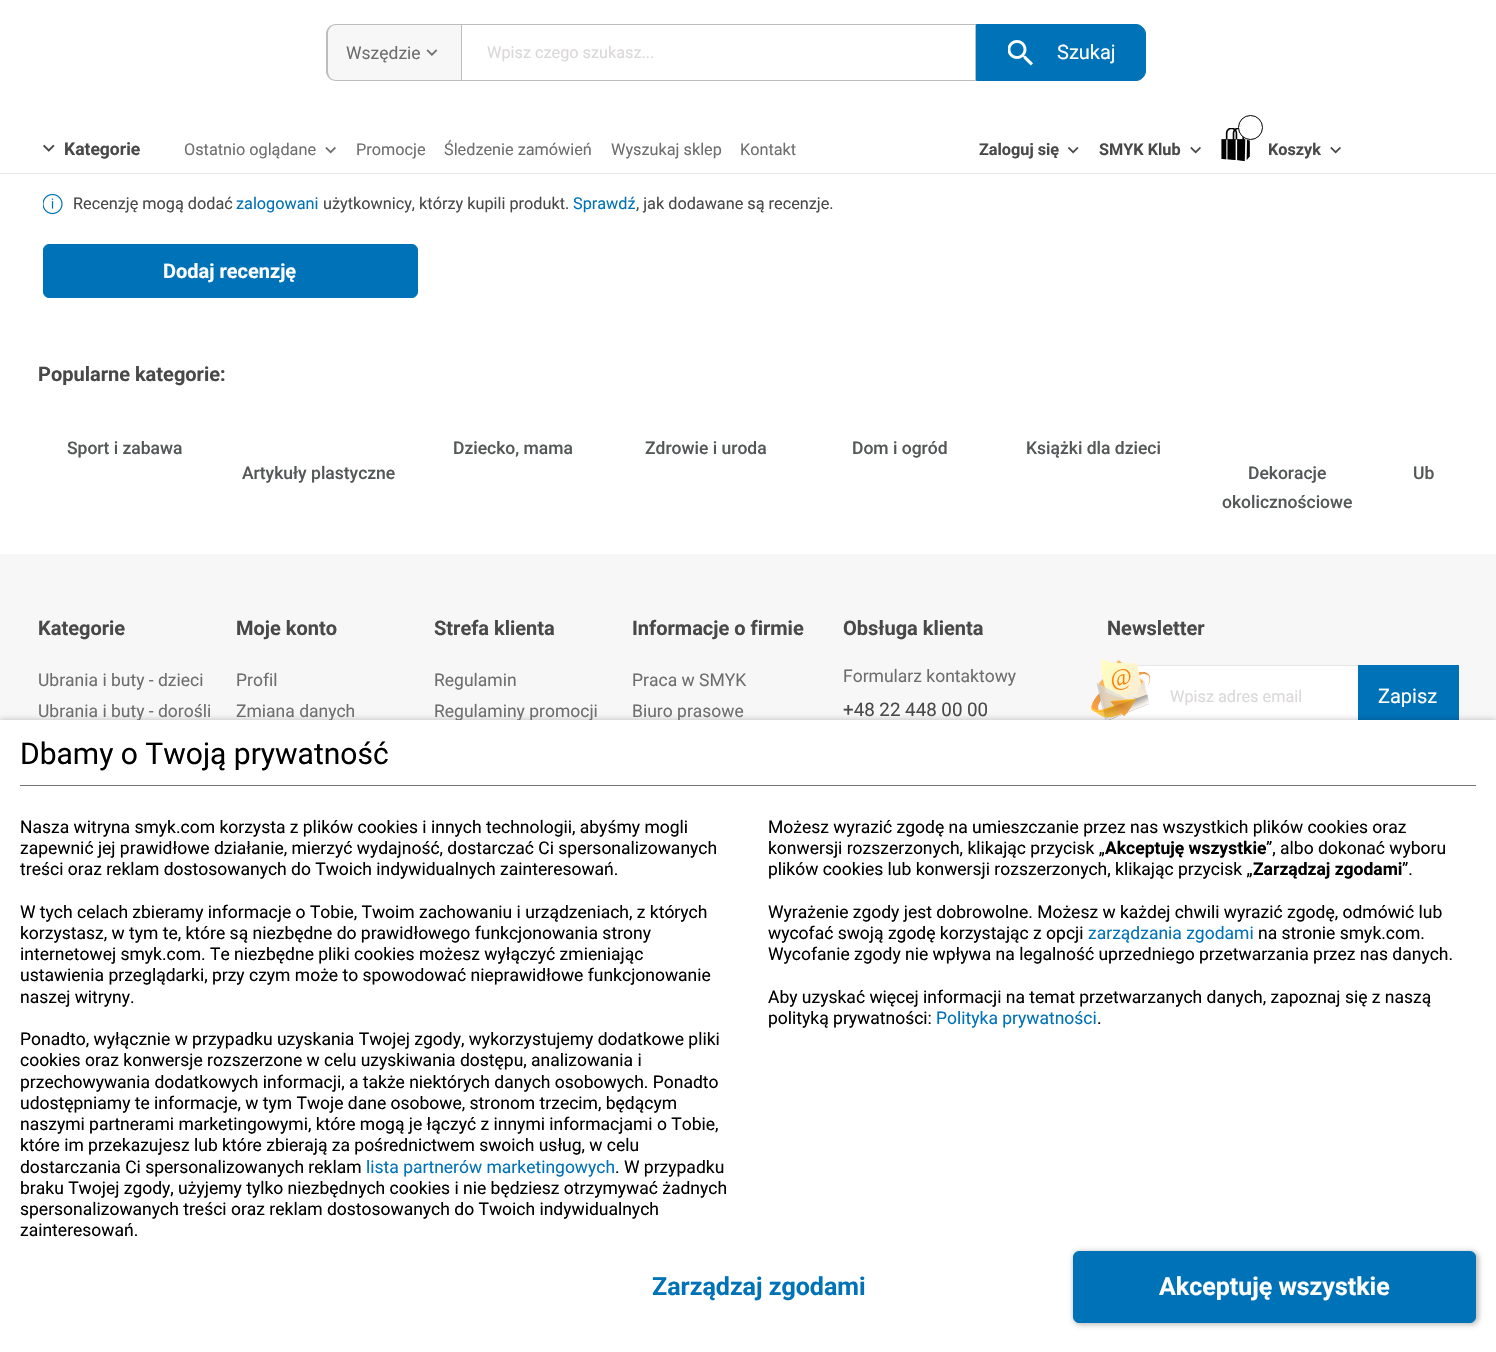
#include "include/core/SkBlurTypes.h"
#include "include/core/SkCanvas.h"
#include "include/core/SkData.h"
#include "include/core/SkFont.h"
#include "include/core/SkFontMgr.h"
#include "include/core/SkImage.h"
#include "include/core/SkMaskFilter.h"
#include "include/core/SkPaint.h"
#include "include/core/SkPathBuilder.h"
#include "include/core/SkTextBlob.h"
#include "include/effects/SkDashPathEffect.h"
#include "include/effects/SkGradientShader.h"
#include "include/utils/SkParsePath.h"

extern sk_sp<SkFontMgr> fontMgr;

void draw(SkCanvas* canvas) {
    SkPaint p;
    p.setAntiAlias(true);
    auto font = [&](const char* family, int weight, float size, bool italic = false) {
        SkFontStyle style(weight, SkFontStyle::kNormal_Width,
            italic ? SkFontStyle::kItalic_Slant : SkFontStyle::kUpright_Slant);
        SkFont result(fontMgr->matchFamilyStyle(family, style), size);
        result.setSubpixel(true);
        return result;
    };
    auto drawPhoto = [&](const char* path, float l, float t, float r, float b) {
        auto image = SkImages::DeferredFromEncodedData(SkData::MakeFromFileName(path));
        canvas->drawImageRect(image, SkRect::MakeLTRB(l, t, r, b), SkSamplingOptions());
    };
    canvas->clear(0xFFFFFFFF);
    p.setColor(0xFFE8E8E8);
    canvas->drawRect(SkRect::MakeLTRB(0, 173, 1496, 174), p);
    p.setColor(0xFFF7F7F7);
    canvas->drawPath(SkPathBuilder().moveTo(336, 24).lineTo(461, 24).lineTo(461, 81).lineTo(336, 81).cubicTo(330.5f, 81, 326, 76.5f, 326, 71).lineTo(326, 34).cubicTo(326, 28.5f, 330.5f, 24, 336, 24).close().detach(), p);
    p.setColor(0xFFBDBDBD);
    canvas->drawPath(SkPathBuilder(SkPathFillType::kEvenOdd).moveTo(336, 24).lineTo(461, 24).lineTo(461, 81).lineTo(336, 81).cubicTo(331, 81, 326, 77, 326, 71).lineTo(326, 34).cubicTo(326, 28, 331, 24, 336, 24).close().moveTo(336, 25).lineTo(461, 25).lineTo(461, 80).lineTo(336, 80).cubicTo(331, 80, 328, 76, 328, 71).lineTo(328, 34).cubicTo(328, 29, 331, 25, 336, 25).close().detach(), p);
    auto font1 = font("Roboto", 400, 17.5f);
    p.setColor(0xFF6E6E6E);
    canvas->drawString("Wszędzie", 346, 59, font1, p);
    drawPhoto("media/1.png", 426, 49, 438, 56);
    p.setStyle(SkPaint::kStroke_Style);
    p.setStrokeWidth(1);
    p.setColor(0xFFBDBDBD);
    canvas->drawRect(SkRect::MakeLTRB(461.5f, 24.5f, 975.5f, 80.5f), p);
    auto font2 = font("Roboto", 400, 16.25f);
    p.setStyle(SkPaint::kFill_Style);
    p.setColor(0xFFDBD8D8);
    canvas->drawString("Wpisz czego szukasz...", 487, 58, font2, p);
    p.setColor(0xFF0072B7);
    canvas->drawPath(SkPathBuilder().moveTo(976.5f, 24.5f).lineTo(1136, 24.5f).cubicTo(1141, 24.5f, 1145.5f, 29, 1145.5f, 34).lineTo(1145.5f, 71).cubicTo(1145.5f, 76, 1141, 80.5f, 1136, 80.5f).lineTo(976.5f, 80.5f).close().detach(), p);
    p.setStyle(SkPaint::kStroke_Style);
    canvas->drawPath(SkPathBuilder().moveTo(976.5f, 24.5f).lineTo(1136, 24.5f).cubicTo(1141, 24.5f, 1145.5f, 29, 1145.5f, 34).lineTo(1145.5f, 71).cubicTo(1145.5f, 76, 1141, 80.5f, 1136, 80.5f).lineTo(976.5f, 80.5f).close().detach(), p);
    drawPhoto("media/2.png", 1008, 40, 1033, 66);
    auto font3 = font("Roboto", 400, 20);
    p.setStyle(SkPaint::kFill_Style);
    p.setColor(0xFFFFFFFF);
    canvas->drawString("Szukaj", 1057, 59, font3, p);
    p.setColor(0xFF6E6E6E);
    canvas->drawString("Ostatnio oglądane", 184, 155, font2, p);
    drawPhoto("media/3.png", 325, 147, 336, 154);
    {
        const struct { const char* s; float x, y; } items[] = {
            {"Promocje", 356, 155},
            {"Śledzenie zamówień", 444, 155},
            {"Wyszukaj sklep", 611, 155},
            {"Kontakt", 740, 155},
        };
        for (auto [s, x, y] : items) {
            canvas->drawString(s, x, y, font2, p);
        }
    }
    auto font4 = font("Roboto", 700, 16.25f);
    p.setColor(0xFF494949);
    canvas->drawString("Zaloguj się", 979, 155, font4, p);
    drawPhoto("media/4.png", 1067, 146, 1079, 154);
    canvas->drawString("SMYK Klub", 1099, 155, font4, p);
    drawPhoto("media/5.png", 1190, 146, 1201, 154);
    drawPhoto("media/6.png", 1221, 128, 1250, 161);
    p.setColor(0xFFFFFFFF);
    canvas->drawCircle(1250.5f, 127.5f, 12, p);
    p.setStyle(SkPaint::kStroke_Style);
    p.setColor(0xFF000000);
    canvas->drawCircle(1250.5f, 127.5f, 12, p);
    p.setStyle(SkPaint::kFill_Style);
    p.setColor(0xFF494949);
    canvas->drawString("Koszyk", 1268, 155, font4, p);
    drawPhoto("media/5.png", 1330, 146, 1341, 154);
    {
        const struct { float l, t, r, b; SkColor color; } items[] = {
            {0, 554, 1496, 720, 0xFFF7F7F7},
            {1110, 666, 1358, 720, 0xFFFFFFFF},
            {1137, 665, 1358, 666, 0xFFE8E8E8},
        };
        for (auto [l, t, r, b, color] : items) {
            p.setColor(color);
            canvas->drawRect(SkRect::MakeLTRB(l, t, r, b), p);
        }
    }
    drawPhoto("media/9.png", 1091, 658, 1151, 720);
    p.setColor(0xFF0072B7);
    canvas->drawRect(SkRect::MakeLTRB(1358, 665, 1459, 720), p);
    p.setColor(0x40000000);
    p.setMaskFilter(SkMaskFilter::MakeBlur(kNormal_SkBlurStyle, 3));
    canvas->drawRect(SkRect::MakeLTRB(0, 720, 1496, 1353), p);
    p.setMaskFilter(nullptr);
    p.setColor(0xFF6E6E6E);
    {
        const struct { const char* s; float x, y; } items[] = {
            {"Ubrania i buty - dorośli", 38, 717},
            {"Zmiana danych", 236, 717},
            {"Regulaminy promocji", 434, 717},
            {"Biuro prasowe", 632, 717},
        };
        for (auto [s, x, y] : items) {
            canvas->drawString(s, x, y, font1, p);
        }
    }
    p.setColor(0xFFFFFFFF);
    canvas->drawRect(SkRect::MakeLTRB(0, 720, 1496, 1352), p);
    p.setColor(0xFF757575);
    canvas->drawRect(SkRect::MakeLTRB(20, 785, 1476, 786), p);
    auto font5 = font("Roboto", 400, 30);
    p.setColor(0xFF000000);
    canvas->drawString("Dbamy o Twoją prywatność", 20, 764, font5, p);
    {
        const struct { const char* s; float x, y; } items[] = {
            {"Nasza witryna smyk.com korzysta z plików cookies i innych technologii, abyśmy mogli", 20, 833},
            {"zapewnić jej prawidłowe działanie, mierzyć wydajność, dostarczać Ci spersonalizowanych", 20, 854},
            {"treści oraz reklam dostosowanych do Twoich indywidualnych zainteresowań.", 20, 875},
            {"W tych celach zbieramy informacje o Tobie, Twoim zachowaniu i urządzeniach, z których", 20, 918},
            {"korzystasz, w tym te, które są niezbędne do prawidłowego funkcjonowania strony", 20, 939},
            {"internetowej smyk.com. Te niezbędne pliki cookies możesz wyłączyć zmieniając", 20, 960},
            {"ustawienia przeglądarki, przy czym może to spowodować nieprawidłowe funkcjonowanie", 20, 981},
            {"naszej witryny.", 20, 1003},
            {"Ponadto, wyłącznie w przypadku uzyskania Twojej zgody, wykorzystujemy dodatkowe pliki", 20, 1045},
            {"cookies oraz konwersje rozszerzone w celu uzyskiwania dostępu, analizowania i", 20, 1066},
            {"przechowywania dodatkowych informacji, a także niektórych danych osobowych. Ponadto", 20, 1088},
            {"udostępniamy te informacje, w tym Twoje dane osobowe, stronom trzecim, będącym", 20, 1109},
            {"naszymi partnerami marketingowymi, które mogą je łączyć z innymi informacjami o Tobie,", 20, 1130},
            {"które im przekazujesz lub które zbierają za pośrednictwem swoich usług, w celu", 20, 1151},
            {"dostarczania Ci spersonalizowanych reklam", 20, 1173},
        };
        for (auto [s, x, y] : items) {
            canvas->drawString(s, x, y, font1, p);
        }
    }
    p.setColor(0xFF0072B7);
    canvas->drawString("lista partnerów marketingowych", 366, 1173, font1, p);
    p.setColor(0xFF000000);
    {
        const struct { const char* s; float x, y; } items[] = {
            {". W przypadku", 615, 1173},
            {"braku Twojej zgody, użyjemy tylko niezbędnych cookies i nie będziesz otrzymywać żadnych", 20, 1194},
            {"spersonalizowanych treści oraz reklam dostosowanych do Twoich indywidualnych", 20, 1215},
            {"zainteresowań.", 20, 1236},
            {"Możesz wyrazić zgodę na umieszczanie przez nas wszystkich plików cookies oraz", 768, 833},
            {"konwersji rozszerzonych, klikając przycisk „", 768, 854},
        };
        for (auto [s, x, y] : items) {
            canvas->drawString(s, x, y, font1, p);
        }
    }
    auto font6 = font("Roboto", 700, 17.5f);
    canvas->drawString("Akceptuję wszystkie", 1105, 854, font6, p);
    canvas->drawString("”, albo dokonać wyboru", 1266, 854, font1, p);
    canvas->drawString("plików cookies lub konwersji rozszerzonych, klikając przycisk „", 768, 875, font1, p);
    canvas->drawString("Zarządzaj zgodami", 1253, 875, font6, p);
    {
        const struct { const char* s; float x, y; } items[] = {
            {"”.", 1402, 875},
            {"Wyrażenie zgody jest dobrowolne. Możesz w każdej chwili wyrazić zgodę, odmówić lub", 768, 918},
            {"wycofać swoją zgodę korzystając z opcji", 768, 939},
        };
        for (auto [s, x, y] : items) {
            canvas->drawString(s, x, y, font1, p);
        }
    }
    p.setColor(0xFF0072B7);
    canvas->drawString("zarządzania zgodami", 1088, 939, font1, p);
    p.setColor(0xFF000000);
    {
        const struct { const char* s; float x, y; } items[] = {
            {"na stronie smyk.com.", 1258, 939},
            {"Wycofanie zgody nie wpływa na legalność uprzedniego przetwarzania przez nas danych.", 768, 960},
            {"Aby uzyskać więcej informacji na temat przetwarzanych danych, zapoznaj się z naszą", 768, 1003},
            {"polityką prywatności:", 768, 1024},
        };
        for (auto [s, x, y] : items) {
            canvas->drawString(s, x, y, font1, p);
        }
    }
    p.setColor(0xFF0072B7);
    canvas->drawString("Polityka prywatności", 936, 1024, font1, p);
    p.setColor(0xFF000000);
    canvas->drawString(".", 1097, 1024, font1, p);
    auto font7 = font("Roboto", 700, 25);
    p.setColor(0xFF0072B7);
    canvas->drawString("Zarządzaj zgodami", 652, 1295, font7, p);
    p.setColor(0x40000000);
    p.setMaskFilter(SkMaskFilter::MakeBlur(kNormal_SkBlurStyle, 2.5f));
    canvas->drawRoundRect(SkRect::MakeLTRB(1073, 1251, 1479, 1325), 8, 8, p);
    p.setMaskFilter(nullptr);
    p.setColor(0xFF0072B7);
    canvas->drawRoundRect(SkRect::MakeLTRB(1073.5f, 1251.5f, 1475.5f, 1322.5f), 5.5f, 5.5f, p);
    p.setStyle(SkPaint::kStroke_Style);
    canvas->drawRoundRect(SkRect::MakeLTRB(1073.5f, 1251.5f, 1475.5f, 1322.5f), 5.5f, 5.5f, p);
    p.setStyle(SkPaint::kFill_Style);
    p.setColor(0xFFFFFFFF);
    canvas->drawString("Akceptuję wszystkie", 1159, 1295, font7, p);
    drawPhoto("media/7.png", 43, 144, 55, 152);
    p.setColor(0xFF494949);
    canvas->drawString("Kategorie", 64, 155, font6, p);
    drawPhoto("media/8.png", 43, 194, 63, 214);
    canvas->drawString("Recenzję mogą dodać", 73, 209, font2, p);
    p.setColor(0xFF0072B7);
    canvas->drawString("zalogowani", 236, 209, font2, p);
    p.setColor(0xFF494949);
    canvas->drawString("użytkownicy, którzy kupili produkt.", 323, 209, font2, p);
    p.setColor(0xFF0072B7);
    canvas->drawString("Sprawdź", 573, 209, font2, p);
    p.setColor(0xFF494949);
    canvas->drawString(", jak dodawane są recenzje.", 636, 209, font2, p);
    p.setColor(0xFF0072B7);
    canvas->drawRoundRect(SkRect::MakeLTRB(43.5f, 244.5f, 417.5f, 297.5f), 5.5f, 5.5f, p);
    p.setStyle(SkPaint::kStroke_Style);
    canvas->drawRoundRect(SkRect::MakeLTRB(43.5f, 244.5f, 417.5f, 297.5f), 5.5f, 5.5f, p);
    auto font8 = font("Roboto", 700, 20);
    p.setStyle(SkPaint::kFill_Style);
    p.setColor(0xFFFFFFFF);
    canvas->drawString("Dodaj recenzję", 163, 278, font8, p);
    p.setColor(0xFF494949);
    canvas->drawString("Popularne kategorie:", 38, 381, font8, p);
    auto font9 = font("Roboto", 500, 17.5f);
    p.setColor(0xFF545758);
    {
        const struct { const char* s; float x, y; } items[] = {
            {"Sport i zabawa", 67, 454},
            {"Dziecko, mama", 453, 454},
            {"Zdrowie i uroda", 645, 454},
            {"Dom i ogród", 852, 454},
            {"Książki dla dzieci", 1026, 454},
            {"Artykuły plastyczne", 242, 479},
            {"Dekoracje", 1248, 479},
            {"okolicznościowe", 1222, 508},
            {"Ub", 1413, 479},
        };
        for (auto [s, x, y] : items) {
            canvas->drawString(s, x, y, font9, p);
        }
    }
    p.setColor(0xFF494949);
    canvas->drawString("Kategorie", 38, 635, font8, p);
    p.setColor(0xFF6E6E6E);
    canvas->drawString("Ubrania i buty - dzieci", 38, 686, font1, p);
    p.setColor(0xFF494949);
    canvas->drawString("Moje konto", 236, 635, font8, p);
    p.setColor(0xFF6E6E6E);
    canvas->drawString("Profil", 236, 686, font1, p);
    p.setColor(0xFF494949);
    canvas->drawString("Strefa klienta", 434, 635, font8, p);
    p.setColor(0xFF6E6E6E);
    canvas->drawString("Regulamin", 434, 686, font1, p);
    p.setColor(0xFF494949);
    canvas->drawString("Informacje o firmie", 632, 635, font8, p);
    p.setColor(0xFF6E6E6E);
    canvas->drawString("Praca w SMYK", 632, 686, font1, p);
    p.setColor(0xFF494949);
    canvas->drawString("Obsługa klienta", 843, 635, font8, p);
    p.setColor(0xFF6E6E6E);
    canvas->drawString("Formularz kontaktowy", 843, 682, font1, p);
    auto font10 = font("Roboto", 400, 18.75f);
    p.setColor(0xFF494949);
    canvas->drawString("+48 22 448 00 00", 843, 716, font10, p);
    canvas->drawString("Newsletter", 1107, 635, font8, p);
    p.setColor(0xFFDBD8D8);
    canvas->drawString("Wpisz adres email", 1170, 702, font2, p);
    p.setColor(0xFFFFFFFF);
    canvas->drawString("Zapisz", 1378, 703, font3, p);
}
